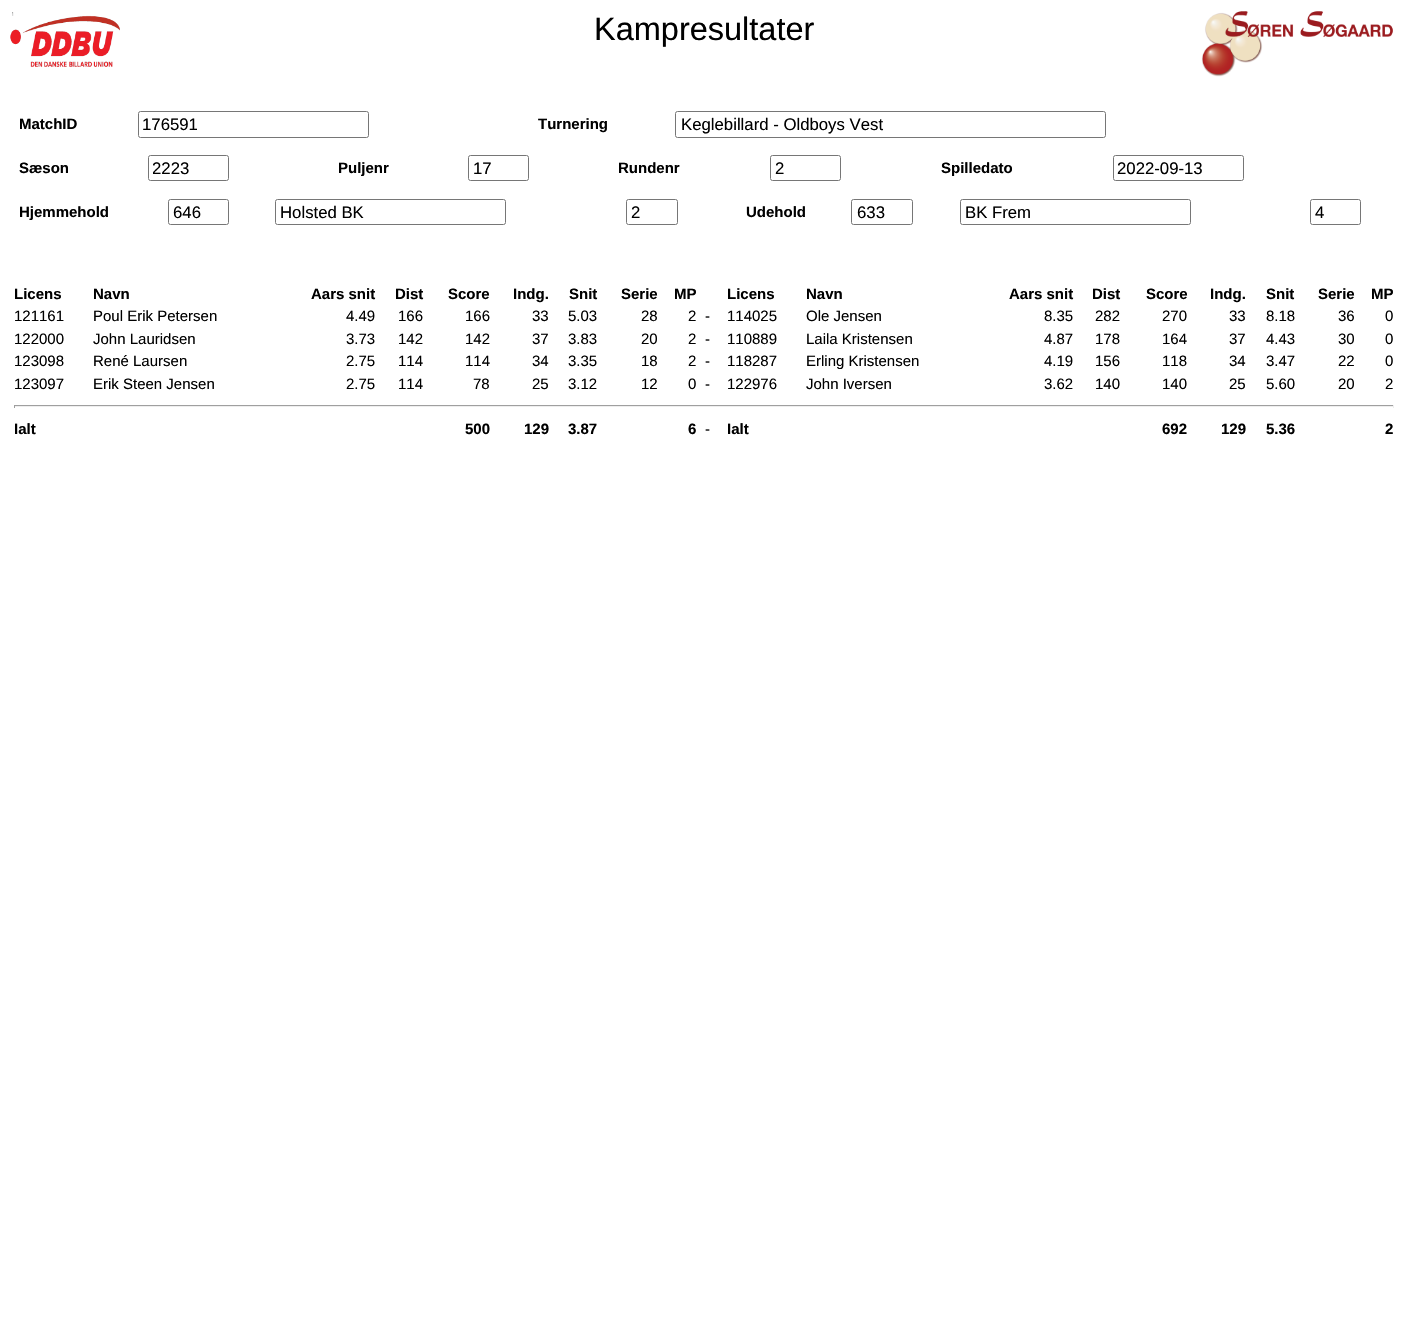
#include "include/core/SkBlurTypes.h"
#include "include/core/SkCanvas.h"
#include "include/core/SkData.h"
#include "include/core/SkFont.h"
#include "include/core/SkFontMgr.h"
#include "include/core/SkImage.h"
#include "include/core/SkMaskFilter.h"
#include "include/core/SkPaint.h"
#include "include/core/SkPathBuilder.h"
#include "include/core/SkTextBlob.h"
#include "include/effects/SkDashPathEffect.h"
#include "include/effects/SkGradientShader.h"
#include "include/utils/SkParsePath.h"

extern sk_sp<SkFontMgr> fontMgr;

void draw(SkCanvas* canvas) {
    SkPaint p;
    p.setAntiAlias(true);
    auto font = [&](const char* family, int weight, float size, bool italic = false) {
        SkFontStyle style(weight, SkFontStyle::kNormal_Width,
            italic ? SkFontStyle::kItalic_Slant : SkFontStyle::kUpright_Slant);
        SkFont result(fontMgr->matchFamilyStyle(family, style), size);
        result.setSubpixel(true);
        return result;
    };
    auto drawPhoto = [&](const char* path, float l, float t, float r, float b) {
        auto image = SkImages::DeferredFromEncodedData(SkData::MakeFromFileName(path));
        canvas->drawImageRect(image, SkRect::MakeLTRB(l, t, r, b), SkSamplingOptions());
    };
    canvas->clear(0xFFFFFFFF);
    drawPhoto("media/1.png", 10, 12, 120, 67);
    auto font1 = font("Liberation Sans", 400, 32.5f);
    p.setColor(0xFF000000);
    canvas->drawString("Kampresultater", 594, 40, font1, p);
    drawPhoto("media/2.png", 1201, 11, 1393, 77);
    auto font2 = font("Liberation Sans", 700, 15);
    canvas->drawString("MatchID", 19, 129, font2, p);
    p.setStyle(SkPaint::kStroke_Style);
    p.setStrokeWidth(1);
    p.setColor(0xFF767676);
    canvas->drawRoundRect(SkRect::MakeLTRB(138.5f, 111.5f, 368.5f, 137.5f), 2, 2, p);
    auto font3 = font("Liberation Sans", 400, 16.75f);
    p.setStyle(SkPaint::kFill_Style);
    p.setColor(0xFF000000);
    canvas->drawString("176591", 142, 130, font3, p);
    canvas->drawString("Turnering", 538, 129, font2, p);
    p.setStyle(SkPaint::kStroke_Style);
    p.setColor(0xFF767676);
    canvas->drawRoundRect(SkRect::MakeLTRB(675.5f, 111.5f, 1105.5f, 137.5f), 2, 2, p);
    p.setStyle(SkPaint::kFill_Style);
    p.setColor(0xFF000000);
    canvas->drawString("Keglebillard - Oldboys Vest", 681, 130, font3, p);
    canvas->drawString("Sæson", 19, 173, font2, p);
    p.setStyle(SkPaint::kStroke_Style);
    p.setColor(0xFF767676);
    canvas->drawRoundRect(SkRect::MakeLTRB(148.5f, 155.5f, 228.5f, 180.5f), 2, 2, p);
    canvas->save();
    canvas->clipRect(SkRect::MakeLTRB(153, 159, 224, 178));
    p.setStyle(SkPaint::kFill_Style);
    p.setColor(0xFF000000);
    canvas->drawString("2223", 152, 174, font3, p);
    canvas->restore();
    canvas->drawString("Puljenr", 338, 173, font2, p);
    p.setStyle(SkPaint::kStroke_Style);
    p.setColor(0xFF767676);
    canvas->drawRoundRect(SkRect::MakeLTRB(468.5f, 155.5f, 528.5f, 180.5f), 2, 2, p);
    p.setStyle(SkPaint::kFill_Style);
    p.setColor(0xFF000000);
    canvas->drawString("17", 473, 174, font3, p);
    canvas->drawString("Rundenr", 618, 173, font2, p);
    p.setStyle(SkPaint::kStroke_Style);
    p.setColor(0xFF767676);
    canvas->drawRoundRect(SkRect::MakeLTRB(770.5f, 155.5f, 840.5f, 180.5f), 2, 2, p);
    p.setStyle(SkPaint::kFill_Style);
    p.setColor(0xFF000000);
    canvas->drawString("2", 775, 174, font3, p);
    canvas->drawString("Spilledato", 941, 173, font2, p);
    p.setStyle(SkPaint::kStroke_Style);
    p.setColor(0xFF767676);
    canvas->drawRoundRect(SkRect::MakeLTRB(1113.5f, 155.5f, 1243.5f, 180.5f), 2, 2, p);
    p.setStyle(SkPaint::kFill_Style);
    p.setColor(0xFF000000);
    canvas->drawString("2022-09-13", 1117, 174, font3, p);
    canvas->drawString("Hjemmehold", 19, 217, font2, p);
    p.setStyle(SkPaint::kStroke_Style);
    p.setColor(0xFF767676);
    canvas->drawRoundRect(SkRect::MakeLTRB(168.5f, 199.5f, 228.5f, 224.5f), 2, 2, p);
    p.setStyle(SkPaint::kFill_Style);
    p.setColor(0xFF000000);
    canvas->drawString("646", 173, 218, font3, p);
    p.setStyle(SkPaint::kStroke_Style);
    p.setColor(0xFF767676);
    canvas->drawRoundRect(SkRect::MakeLTRB(275.5f, 199.5f, 505.5f, 224.5f), 2, 2, p);
    p.setStyle(SkPaint::kFill_Style);
    p.setColor(0xFF000000);
    canvas->drawString("Holsted BK", 280, 218, font3, p);
    p.setStyle(SkPaint::kStroke_Style);
    p.setColor(0xFF767676);
    canvas->drawRoundRect(SkRect::MakeLTRB(626.5f, 199.5f, 677.5f, 224.5f), 2, 2, p);
    p.setStyle(SkPaint::kFill_Style);
    p.setColor(0xFF000000);
    canvas->drawString("2", 631, 218, font3, p);
    canvas->drawString("Udehold", 746, 217, font2, p);
    p.setStyle(SkPaint::kStroke_Style);
    p.setColor(0xFF767676);
    canvas->drawRoundRect(SkRect::MakeLTRB(851.5f, 199.5f, 912.5f, 224.5f), 2, 2, p);
    p.setStyle(SkPaint::kFill_Style);
    p.setColor(0xFF000000);
    canvas->drawString("633", 857, 218, font3, p);
    p.setStyle(SkPaint::kStroke_Style);
    p.setColor(0xFF767676);
    canvas->drawRoundRect(SkRect::MakeLTRB(960.5f, 199.5f, 1190.5f, 224.5f), 2, 2, p);
    p.setStyle(SkPaint::kFill_Style);
    p.setColor(0xFF000000);
    canvas->drawString("BK Frem", 965, 218, font3, p);
    p.setStyle(SkPaint::kStroke_Style);
    p.setColor(0xFF767676);
    canvas->drawRoundRect(SkRect::MakeLTRB(1310.5f, 199.5f, 1360.5f, 224.5f), 2, 2, p);
    p.setStyle(SkPaint::kFill_Style);
    p.setColor(0xFF000000);
    canvas->drawString("4", 1315, 218, font3, p);
    {
        const struct { const char* s; float x, y; } items[] = {
            {"Licens", 14, 299},
            {"Navn", 93, 299},
            {"Aars snit", 311, 299},
            {"Dist", 395, 299},
            {"Score", 448, 299},
            {"Indg.", 513, 299},
            {"Snit", 569, 299},
            {"Serie", 621, 299},
            {"MP", 674, 299},
            {"Licens", 727, 299},
            {"Navn", 806, 299},
            {"Aars snit", 1009, 299},
            {"Dist", 1092, 299},
            {"Score", 1146, 299},
            {"Indg.", 1210, 299},
            {"Snit", 1266, 299},
            {"Serie", 1318, 299},
            {"MP", 1371, 299},
        };
        for (auto [s, x, y] : items) {
            canvas->drawString(s, x, y, font2, p);
        }
    }
    auto font4 = font("Liberation Sans", 400, 15);
    {
        const struct { const char* s; float x, y; } items[] = {
            {"121161", 14, 321},
            {"Poul Erik Petersen", 93, 321},
            {"4.49", 346, 321},
            {"166", 398, 321},
            {"166", 465, 321},
            {"33", 532, 321},
            {"5.03", 568, 321},
            {"28", 641, 321},
            {"2", 688, 321},
            {"-", 705, 321},
            {"114025", 727, 321},
            {"Ole Jensen", 806, 321},
            {"8.35", 1044, 321},
            {"282", 1095, 321},
            {"270", 1162, 321},
            {"33", 1229, 321},
            {"8.18", 1266, 321},
            {"36", 1338, 321},
            {"0", 1385, 321},
            {"122000", 14, 344},
            {"John Lauridsen", 93, 344},
            {"3.73", 346, 344},
            {"142", 398, 344},
            {"142", 465, 344},
            {"37", 532, 344},
            {"3.83", 568, 344},
            {"20", 641, 344},
            {"2", 688, 344},
            {"-", 705, 344},
            {"110889", 727, 344},
            {"Laila Kristensen", 806, 344},
            {"4.87", 1044, 344},
            {"178", 1095, 344},
            {"164", 1162, 344},
            {"37", 1229, 344},
            {"4.43", 1266, 344},
            {"30", 1338, 344},
            {"0", 1385, 344},
            {"123098", 14, 366},
            {"René Laursen", 93, 366},
            {"2.75", 346, 366},
            {"114", 398, 366},
            {"114", 465, 366},
            {"34", 532, 366},
            {"3.35", 568, 366},
            {"18", 641, 366},
            {"2", 688, 366},
            {"-", 705, 366},
            {"118287", 727, 366},
            {"Erling Kristensen", 806, 366},
            {"4.19", 1044, 366},
            {"156", 1095, 366},
            {"118", 1162, 366},
            {"34", 1229, 366},
            {"3.47", 1266, 366},
            {"22", 1338, 366},
            {"0", 1385, 366},
            {"123097", 14, 389},
            {"Erik Steen Jensen", 93, 389},
            {"2.75", 346, 389},
            {"114", 398, 389},
            {"78", 473, 389},
            {"25", 532, 389},
            {"3.12", 568, 389},
            {"12", 641, 389},
            {"0", 688, 389},
            {"-", 705, 389},
            {"122976", 727, 389},
            {"John Iversen", 806, 389},
            {"3.62", 1044, 389},
            {"140", 1095, 389},
            {"140", 1162, 389},
            {"25", 1229, 389},
            {"5.60", 1266, 389},
            {"20", 1338, 389},
            {"2", 1385, 389},
        };
        for (auto [s, x, y] : items) {
            canvas->drawString(s, x, y, font4, p);
        }
    }
    {
        const struct { float l, t, r, b; SkColor color; } items[] = {
            {14, 405, 1394, 406, 0xFF9F9F9F},
            {1393, 405, 1394, 408, 0xFFEEEEEE},
            {14, 406, 1394, 407, 0xFFEEEEEE},
            {14, 405, 15, 408, 0xFF9F9F9F},
        };
        for (auto [l, t, r, b, color] : items) {
            p.setColor(color);
            canvas->drawRect(SkRect::MakeLTRB(l, t, r, b), p);
        }
    }
    p.setColor(0xFF000000);
    {
        const struct { const char* s; float x, y; } items[] = {
            {"Ialt", 14, 434},
            {"500", 465, 434},
            {"129", 524, 434},
            {"3.87", 568, 434},
            {"6", 688, 434},
        };
        for (auto [s, x, y] : items) {
            canvas->drawString(s, x, y, font2, p);
        }
    }
    canvas->drawString("-", 705, 434, font4, p);
    {
        const struct { const char* s; float x, y; } items[] = {
            {"Ialt", 727, 434},
            {"692", 1162, 434},
            {"129", 1221, 434},
            {"5.36", 1266, 434},
            {"2", 1385, 434},
        };
        for (auto [s, x, y] : items) {
            canvas->drawString(s, x, y, font2, p);
        }
    }
}
